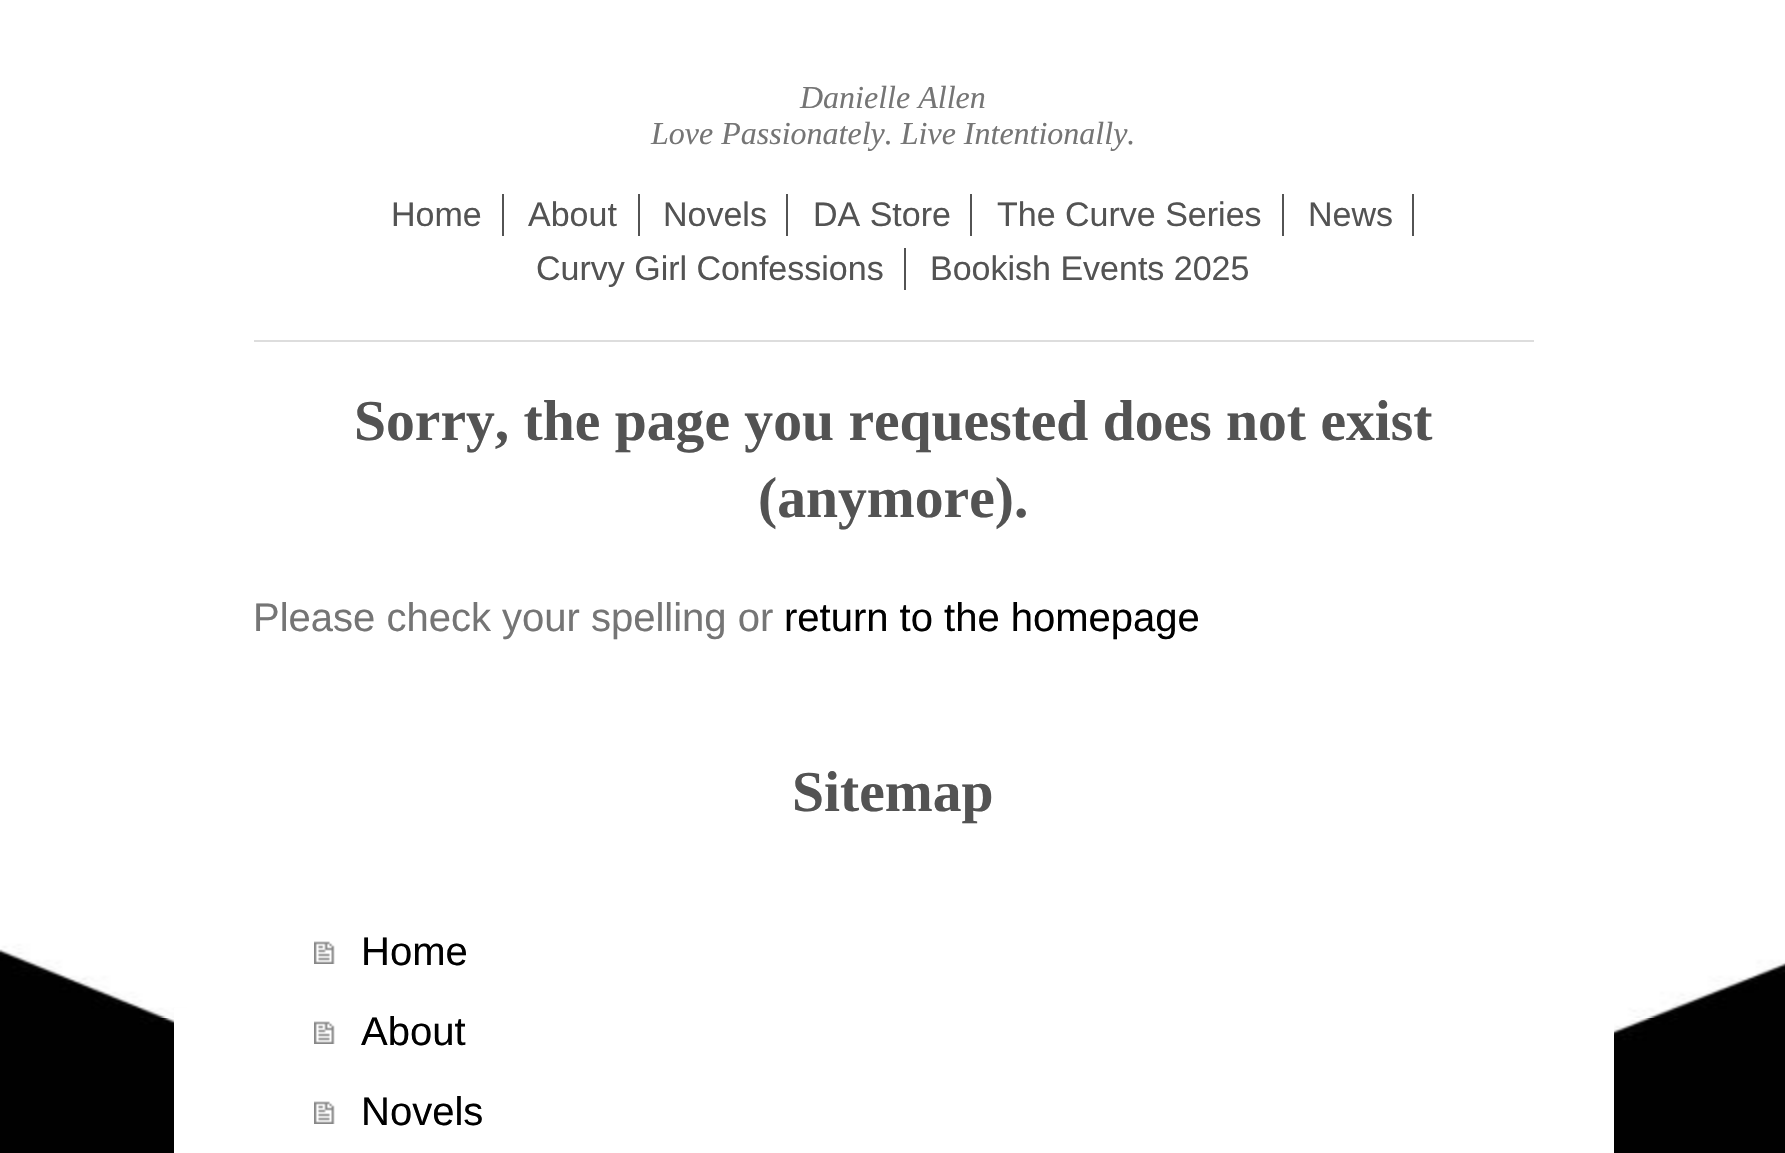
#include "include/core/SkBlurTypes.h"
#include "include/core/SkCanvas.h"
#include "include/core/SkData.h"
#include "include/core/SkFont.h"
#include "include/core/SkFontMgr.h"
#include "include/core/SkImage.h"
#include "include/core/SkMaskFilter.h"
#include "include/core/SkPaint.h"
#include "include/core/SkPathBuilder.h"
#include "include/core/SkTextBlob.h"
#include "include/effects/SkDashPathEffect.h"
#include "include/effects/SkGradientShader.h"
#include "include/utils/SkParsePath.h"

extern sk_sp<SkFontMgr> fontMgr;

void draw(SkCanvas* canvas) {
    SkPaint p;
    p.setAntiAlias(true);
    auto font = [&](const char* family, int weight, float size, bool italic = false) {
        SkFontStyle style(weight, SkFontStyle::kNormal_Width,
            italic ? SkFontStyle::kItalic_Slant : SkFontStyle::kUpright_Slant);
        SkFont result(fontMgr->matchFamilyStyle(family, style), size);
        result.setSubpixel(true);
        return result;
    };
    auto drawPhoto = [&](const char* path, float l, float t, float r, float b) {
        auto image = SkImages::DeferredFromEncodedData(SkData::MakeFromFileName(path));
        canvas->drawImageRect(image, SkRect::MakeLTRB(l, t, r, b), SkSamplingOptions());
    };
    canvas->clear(0xFFFFFFFF);
    drawPhoto("media/1.png", 0, 0, 1785, 1153);
    auto font1 = font("Liberation Serif", 400, 32, true);
    p.setColor(0xFF757575);
    canvas->drawString("Danielle Allen", 800, 108, font1, p);
    canvas->drawString("Love Passionately. Live Intentionally.", 651, 144, font1, p);
    p.setColor(0xFFDDDDDD);
    canvas->drawRect(SkRect::MakeLTRB(254, 340, 1534, 342), p);
    p.setColor(0xFF535353);
    canvas->drawRect(SkRect::MakeLTRB(502, 194, 504, 236), p);
    auto font2 = font("Liberation Sans", 400, 34);
    canvas->drawString("Home", 391, 226, font2, p);
    canvas->drawRect(SkRect::MakeLTRB(638, 194, 640, 236), p);
    canvas->drawString("About", 528, 226, font2, p);
    canvas->drawRect(SkRect::MakeLTRB(786, 194, 788, 236), p);
    canvas->drawString("Novels", 663, 226, font2, p);
    canvas->drawRect(SkRect::MakeLTRB(970, 194, 972, 236), p);
    canvas->drawString("DA Store", 813, 226, font2, p);
    canvas->drawRect(SkRect::MakeLTRB(1282, 194, 1284, 236), p);
    canvas->drawString("The Curve Series", 997, 226, font2, p);
    canvas->drawRect(SkRect::MakeLTRB(1412, 194, 1414, 236), p);
    canvas->drawString("News", 1308, 226, font2, p);
    canvas->drawRect(SkRect::MakeLTRB(904, 248, 906, 290), p);
    canvas->drawString("Curvy Girl Confessions", 536, 280, font2, p);
    canvas->drawString("Bookish Events 2025", 930, 280, font2, p);
    auto font3 = font("Liberation Serif", 700, 57.6f);
    canvas->drawString("Sorry, the page you requested does not exist", 354, 440, font3, p);
    canvas->drawString("(anymore).", 758, 517, font3, p);
    auto font4 = font("Liberation Sans", 400, 40);
    p.setColor(0xFF757575);
    canvas->drawString("Please check your spelling or", 253, 631, font4, p);
    p.setColor(0xFF000000);
    canvas->drawString("return to the homepage", 784, 631, font4, p);
    p.setColor(0xFF535353);
    canvas->drawString("Sitemap", 792, 811, font3, p);
    drawPhoto("media/2.png", 314, 941, 335, 964);
    p.setColor(0xFF000000);
    canvas->drawString("Home", 361, 965, font4, p);
    p.setColor(0xFFFFFFFF);
    canvas->drawRect(SkRect::MakeLTRB(174, 1008, 1614, 1153), p);
    drawPhoto("media/2.png", 314, 1021, 335, 1044);
    p.setColor(0xFF000000);
    canvas->drawString("About", 361, 1045, font4, p);
    drawPhoto("media/2.png", 314, 1101, 335, 1124);
    canvas->drawString("Novels", 361, 1125, font4, p);
}
